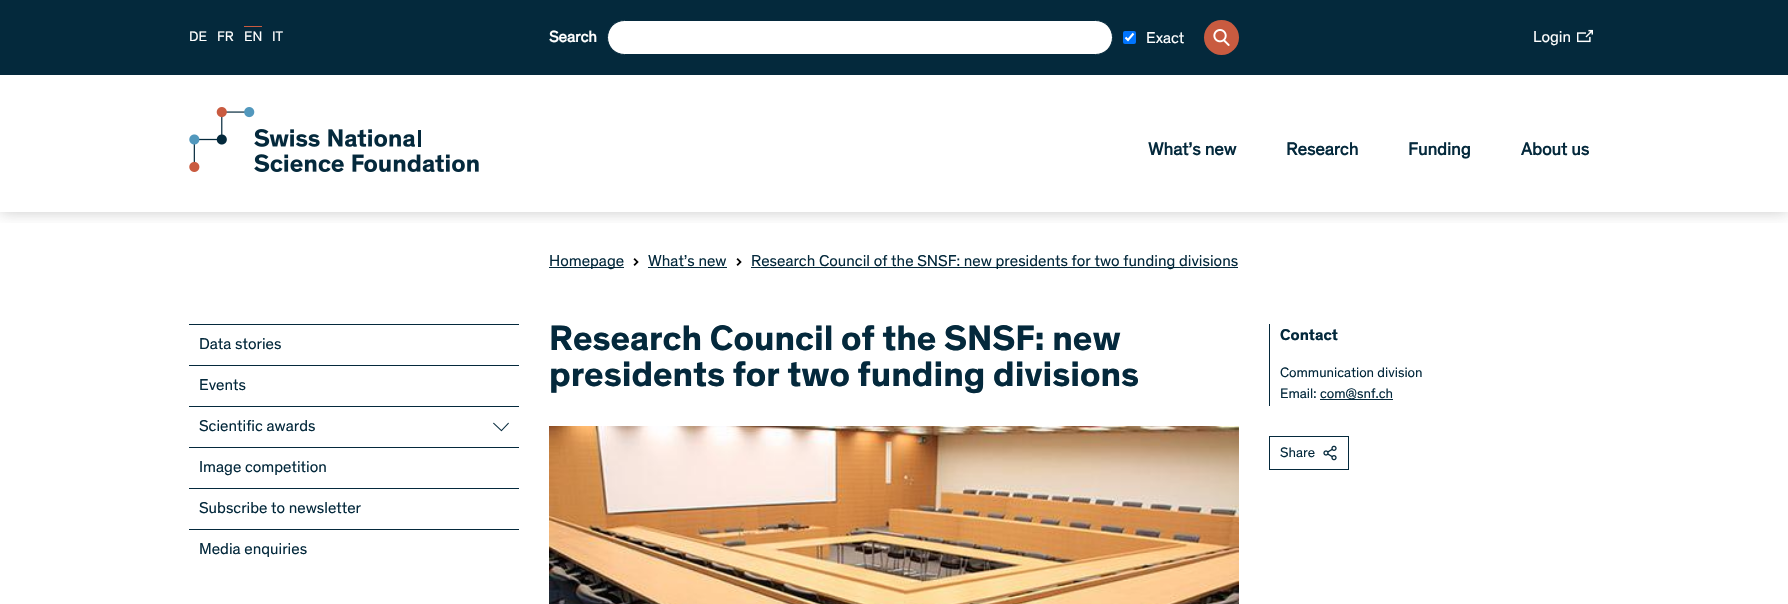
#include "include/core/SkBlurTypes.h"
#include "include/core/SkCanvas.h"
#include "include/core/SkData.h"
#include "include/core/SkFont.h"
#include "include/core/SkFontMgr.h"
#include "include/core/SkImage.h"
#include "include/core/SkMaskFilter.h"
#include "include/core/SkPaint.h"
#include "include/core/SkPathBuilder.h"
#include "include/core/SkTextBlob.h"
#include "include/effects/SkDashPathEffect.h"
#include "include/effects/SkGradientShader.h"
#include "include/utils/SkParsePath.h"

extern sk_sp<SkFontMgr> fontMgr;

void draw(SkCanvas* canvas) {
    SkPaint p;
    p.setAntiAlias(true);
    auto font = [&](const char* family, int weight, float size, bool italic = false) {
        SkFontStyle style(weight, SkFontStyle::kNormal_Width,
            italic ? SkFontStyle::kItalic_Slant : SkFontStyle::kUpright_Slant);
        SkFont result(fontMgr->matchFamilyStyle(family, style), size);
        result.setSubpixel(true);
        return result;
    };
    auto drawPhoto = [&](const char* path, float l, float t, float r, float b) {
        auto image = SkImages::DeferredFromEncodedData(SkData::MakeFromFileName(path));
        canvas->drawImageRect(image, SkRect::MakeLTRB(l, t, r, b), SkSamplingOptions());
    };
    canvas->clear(0xFFFFFFFF);
    canvas->save();
    canvas->clipRect(SkRect::MakeLTRB(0, 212, 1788, 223));
    p.setColor(0x40282828);
    p.setMaskFilter(SkMaskFilter::MakeBlur(kNormal_SkBlurStyle, 7.5f));
    canvas->drawRect(SkRect::MakeLTRB(0, 0, 1788, 212), p);
    p.setMaskFilter(nullptr);
    canvas->restore();
    p.setColor(0xFF04293C);
    canvas->drawRect(SkRect::MakeLTRB(0, 0, 1788, 75), p);
    auto font1 = font("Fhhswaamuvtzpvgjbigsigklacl", 400, 14);
    p.setColor(0xFFFFFFFF);
    canvas->drawString("DE", 189, 41, font1, p);
    canvas->drawString("FR", 217, 41, font1, p);
    p.setColor(0xFFC95B40);
    canvas->drawRect(SkRect::MakeLTRB(244, 26, 262, 27), p);
    p.setColor(0xFFFFFFFF);
    canvas->drawString("EN", 244, 41, font1, p);
    canvas->drawString("IT", 272, 41, font1, p);
    auto font2 = font("Fhhswaamuvtzpvgjbigsigklacl", 700, 16);
    canvas->drawString("Search", 549, 42, font2, p);
    canvas->drawRoundRect(SkRect::MakeLTRB(607.5f, 20.5f, 1112.5f, 54.5f), 17, 17, p);
    p.setStyle(SkPaint::kStroke_Style);
    p.setStrokeWidth(1);
    p.setColor(0xFF04293C);
    canvas->drawRoundRect(SkRect::MakeLTRB(607.5f, 20.5f, 1112.5f, 54.5f), 17, 17, p);
    p.setStyle(SkPaint::kFill_Style);
    p.setColor(0xFF0075FF);
    canvas->drawRoundRect(SkRect::MakeLTRB(1123, 31, 1136, 44), 2, 2, p);
    p.setStyle(SkPaint::kStroke_Style);
    p.setStrokeWidth(2.1f);
    p.setColor(0xFFFFFFFF);
    canvas->drawPath(SkPathBuilder().moveTo(1125.5f, 37.5f).lineTo(1128, 40).lineTo(1133.5f, 33.5f).detach(), p);
    auto font3 = font("Fhhswaamuvtzpvgjbigsigklacl", 400, 16);
    p.setStyle(SkPaint::kFill_Style);
    canvas->drawString("Exact", 1146, 43, font3, p);
    p.setColor(0xFFC95B40);
    canvas->drawCircle(1221.5f, 37.5f, 17.5f, p);
    drawPhoto("media/1.png", 1213, 29, 1230, 46);
    p.setColor(0xFFFFFFFF);
    canvas->drawString("Login", 1533, 42, font3, p);
    drawPhoto("media/2.png", 1577, 29, 1593, 43);
    drawPhoto("media/3.png", 189, 107, 479, 172);
    auto font4 = font("Fhhswaamuvtzpvgjbigsigklacl", 700, 18);
    p.setColor(0xFF04293C);
    {
        const struct { const char* s; float x, y; } items[] = {
            {"What’s new", 1148, 155},
            {"Research", 1286, 155},
            {"Funding", 1408, 155},
            {"About us", 1521, 155},
        };
        for (auto [s, x, y] : items) {
            canvas->drawString(s, x, y, font4, p);
        }
    }
    canvas->drawRect(SkRect::MakeLTRB(549, 267, 624, 268), p);
    canvas->drawString("Homepage", 549, 266, font3, p);
    drawPhoto("media/4.png", 633, 258, 639, 266);
    canvas->drawString("What’s new", 648, 266, font3, p);
    canvas->drawRect(SkRect::MakeLTRB(648, 267, 727, 268), p);
    drawPhoto("media/4.png", 736, 258, 742, 266);
    canvas->drawRect(SkRect::MakeLTRB(751, 267, 1238, 268), p);
    canvas->drawString("Research Council of the SNSF: new presidents for two funding divisions", 751, 266, font3, p);
    canvas->drawRect(SkRect::MakeLTRB(189, 324, 519, 325), p);
    canvas->drawString("Data stories", 199, 349, font3, p);
    canvas->drawRect(SkRect::MakeLTRB(189, 365, 519, 366), p);
    canvas->drawString("Events", 199, 390, font3, p);
    canvas->drawRect(SkRect::MakeLTRB(189, 406, 519, 407), p);
    canvas->drawString("Scientific awards", 199, 431, font3, p);
    drawPhoto("media/5.png", 493, 422, 509, 432);
    canvas->drawRect(SkRect::MakeLTRB(189, 447, 519, 448), p);
    canvas->drawString("Image competition", 199, 472, font3, p);
    canvas->drawRect(SkRect::MakeLTRB(189, 488, 519, 489), p);
    canvas->drawString("Subscribe to newsletter", 199, 513, font3, p);
    canvas->drawRect(SkRect::MakeLTRB(189, 529, 519, 530), p);
    canvas->drawString("Media enquiries", 199, 554, font3, p);
    auto font5 = font("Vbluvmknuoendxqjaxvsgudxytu", 700, 36);
    canvas->drawString("Research Council of the SNSF: new", 549, 350, font5, p);
    canvas->drawString("presidents for two funding divisions", 549, 386, font5, p);
    drawPhoto("media/6.png", 549, 426, 1239, 604);
    canvas->drawRect(SkRect::MakeLTRB(1269, 324, 1270, 406), p);
    auto font6 = font("Vbluvmknuoendxqjaxvsgudxytu", 700, 16);
    canvas->drawString("Contact", 1280, 340, font6, p);
    canvas->drawString("Communication division", 1280, 377, font1, p);
    canvas->drawString("Email:", 1280, 398, font1, p);
    canvas->drawRect(SkRect::MakeLTRB(1320, 399, 1393, 400), p);
    canvas->drawString("com@snf.ch", 1320, 398, font1, p);
    p.setStyle(SkPaint::kStroke_Style);
    p.setStrokeWidth(1);
    canvas->drawRect(SkRect::MakeLTRB(1269.5f, 436.5f, 1348.5f, 469.5f), p);
    p.setStyle(SkPaint::kFill_Style);
    canvas->drawString("Share", 1280, 457, font1, p);
    drawPhoto("media/7.png", 1323, 445, 1337, 461);
}
